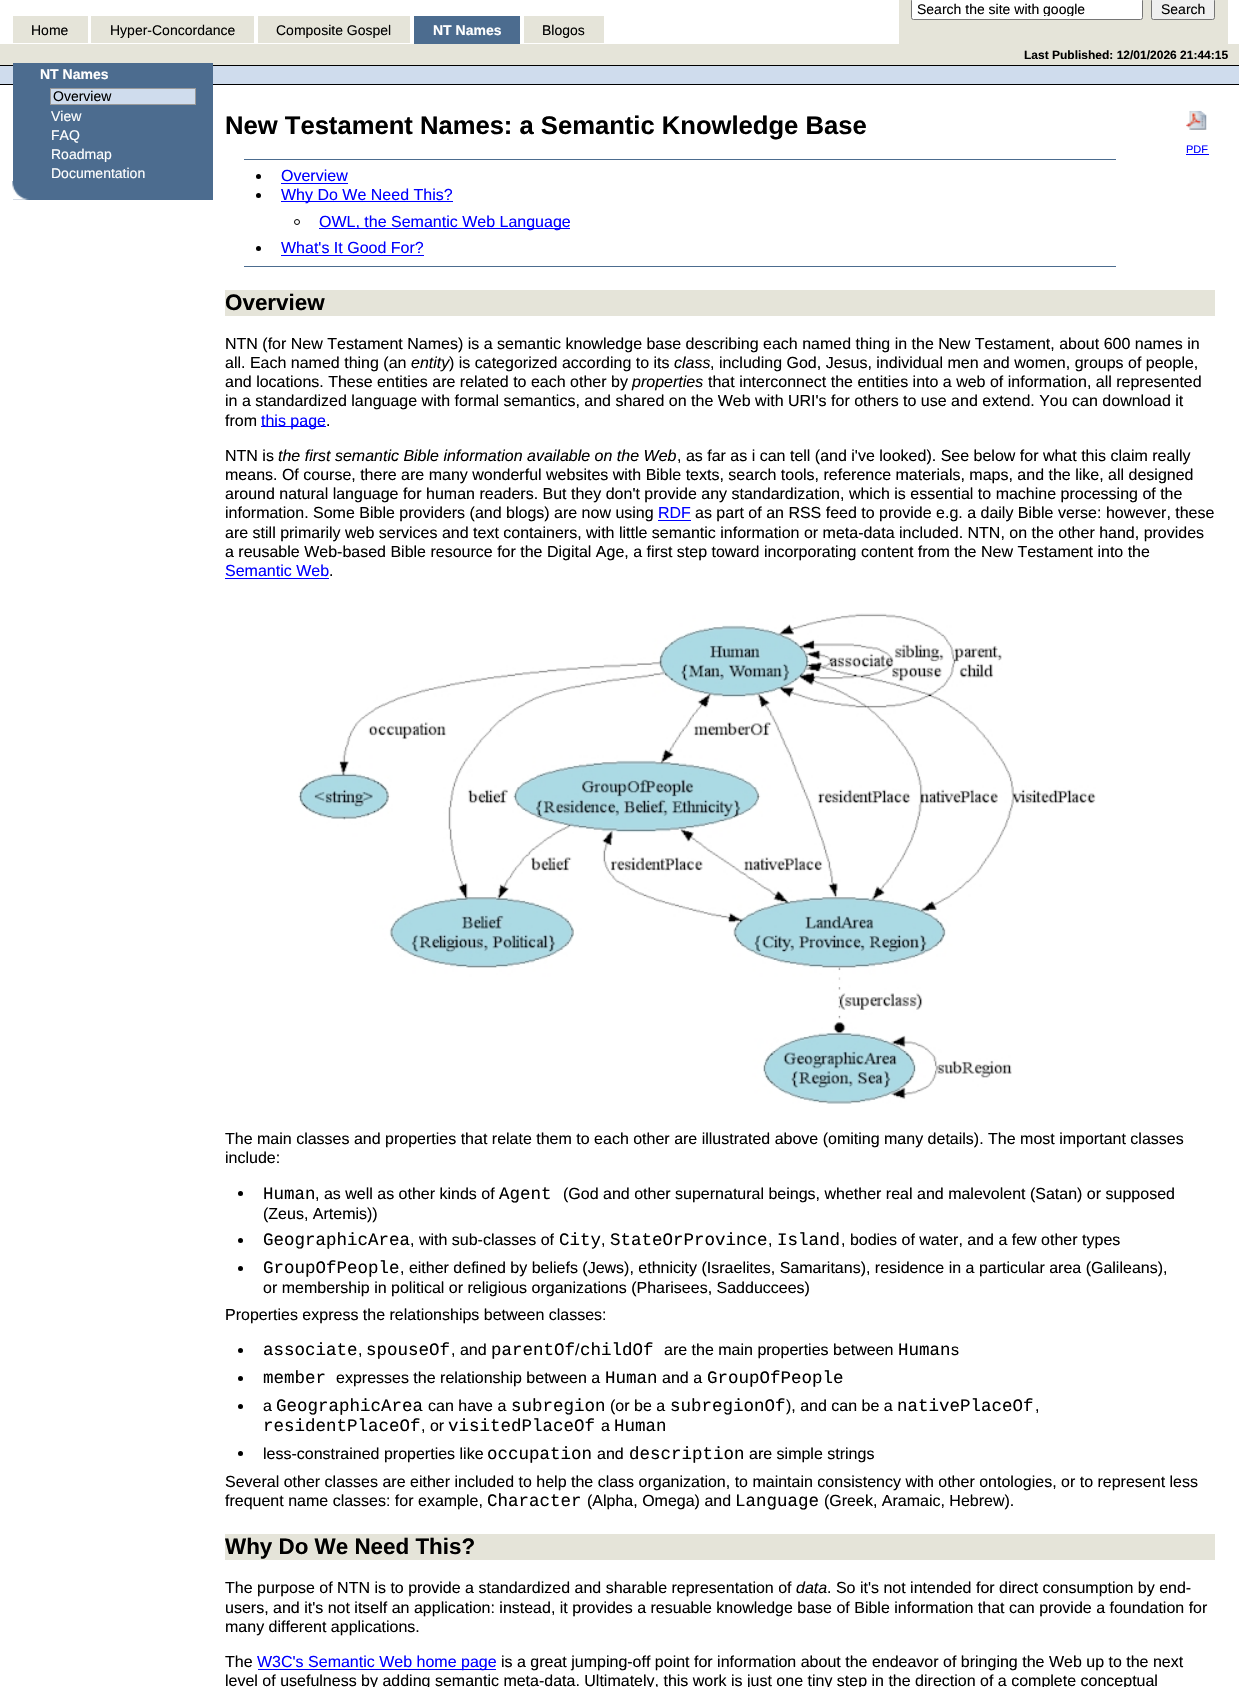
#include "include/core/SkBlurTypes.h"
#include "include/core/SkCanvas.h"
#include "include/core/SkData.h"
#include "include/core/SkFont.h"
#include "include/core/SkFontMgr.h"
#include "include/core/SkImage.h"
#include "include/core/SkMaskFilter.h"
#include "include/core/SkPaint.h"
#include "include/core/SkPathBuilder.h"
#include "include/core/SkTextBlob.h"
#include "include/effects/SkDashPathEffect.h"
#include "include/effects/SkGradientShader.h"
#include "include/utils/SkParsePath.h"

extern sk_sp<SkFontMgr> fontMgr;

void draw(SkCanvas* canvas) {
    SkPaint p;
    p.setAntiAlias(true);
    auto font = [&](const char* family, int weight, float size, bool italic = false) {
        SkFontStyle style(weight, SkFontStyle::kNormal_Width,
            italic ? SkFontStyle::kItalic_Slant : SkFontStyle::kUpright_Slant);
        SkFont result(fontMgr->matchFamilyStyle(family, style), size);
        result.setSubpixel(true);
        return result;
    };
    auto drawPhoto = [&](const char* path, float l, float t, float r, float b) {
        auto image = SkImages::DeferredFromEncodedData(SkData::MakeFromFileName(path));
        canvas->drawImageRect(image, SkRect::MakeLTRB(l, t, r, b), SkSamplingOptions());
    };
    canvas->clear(0xFFFFFFFF);
    p.setColor(0xFFE5E4D9);
    canvas->drawRect(SkRect::MakeLTRB(899, 0, 1228, 44), p);
    p.setColor(0xFFFFFFFF);
    canvas->drawRoundRect(SkRect::MakeLTRB(911.5f, -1.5f, 1142.5f, 19.5f), 2, 2, p);
    p.setStyle(SkPaint::kStroke_Style);
    p.setStrokeWidth(1);
    p.setColor(0xFF767676);
    canvas->drawRoundRect(SkRect::MakeLTRB(911.5f, -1.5f, 1142.5f, 19.5f), 2, 2, p);
    canvas->save();
    canvas->clipRect(SkRect::MakeLTRB(916, 1, 1138, 16));
    auto font1 = font("Liberation Sans", 400, 14);
    p.setStyle(SkPaint::kFill_Style);
    p.setColor(0xFF000000);
    canvas->drawString("Search the site with google", 917, 14, font1, p);
    canvas->restore();
    p.setColor(0xFFEFEFEF);
    canvas->drawRoundRect(SkRect::MakeLTRB(1151.5f, -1.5f, 1214.5f, 19.5f), 2, 2, p);
    p.setStyle(SkPaint::kStroke_Style);
    p.setColor(0xFF767676);
    canvas->drawRoundRect(SkRect::MakeLTRB(1151.5f, -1.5f, 1214.5f, 19.5f), 2, 2, p);
    p.setStyle(SkPaint::kFill_Style);
    p.setColor(0xFF000000);
    canvas->drawString("Search", 1161, 14, font1, p);
    p.setColor(0xFFE5E4D9);
    canvas->drawRect(SkRect::MakeLTRB(13, 16, 88, 43), p);
    p.setColor(0xFF000000);
    canvas->drawString("Home", 31, 35, font1, p);
    p.setColor(0xFFE5E4D9);
    canvas->drawRect(SkRect::MakeLTRB(91, 16, 254, 43), p);
    p.setColor(0xFF000000);
    canvas->drawString("Hyper-Concordance", 110, 35, font1, p);
    p.setColor(0xFFE5E4D9);
    canvas->drawRect(SkRect::MakeLTRB(258, 16, 410, 43), p);
    p.setColor(0xFF000000);
    canvas->drawString("Composite Gospel", 276, 35, font1, p);
    p.setColor(0xFF4C6C8F);
    canvas->drawRect(SkRect::MakeLTRB(414, 16, 520, 44), p);
    auto font2 = font("Liberation Sans", 700, 14);
    p.setColor(0xFFFFFFFF);
    canvas->drawString("NT Names", 433, 35, font2, p);
    p.setColor(0xFFE5E4D9);
    canvas->drawRect(SkRect::MakeLTRB(524, 16, 604, 43), p);
    p.setColor(0xFF000000);
    canvas->drawString("Blogos", 542, 35, font1, p);
    p.setColor(0xFFE5E4D9);
    canvas->drawRect(SkRect::MakeLTRB(0, 44, 1239, 65), p);
    auto font3 = font("Liberation Sans", 700, 12);
    p.setColor(0xFF000000);
    canvas->drawString("Last Published: 12/01/2026 21:44:15", 1024, 59, font3, p);
    {
        const struct { float l, t, r, b; SkColor color; } items[] = {
            {0, 66, 1239, 84, 0xFFCFDCED},
            {0, 65, 1239, 66, 0xFF000000},
            {0, 84, 1239, 85, 0xFF000000},
            {13, 63, 213, 200, 0xFF4C6C8F},
        };
        for (auto [l, t, r, b, color] : items) {
            p.setColor(color);
            canvas->drawRect(SkRect::MakeLTRB(l, t, r, b), p);
        }
    }
    p.setColor(0xFFFFFFFF);
    canvas->drawString("NT Names", 40, 79, font2, p);
    p.setColor(0xFFCFDCED);
    canvas->drawRect(SkRect::MakeLTRB(50.5f, 88.5f, 195.5f, 104.5f), p);
    p.setStyle(SkPaint::kStroke_Style);
    p.setColor(0xFF999999);
    canvas->drawRect(SkRect::MakeLTRB(50.5f, 88.5f, 195.5f, 104.5f), p);
    p.setStyle(SkPaint::kFill_Style);
    p.setColor(0xFF000000);
    canvas->drawString("Overview", 53, 101, font1, p);
    p.setColor(0xFFFFFFFF);
    {
        const struct { const char* s; float x, y; } items[] = {
            {"View", 51, 121},
            {"FAQ", 51, 140},
            {"Roadmap", 51, 159},
            {"Documentation", 51, 178},
        };
        for (auto [s, x, y] : items) {
            canvas->drawString(s, x, y, font1, p);
        }
    }
    drawPhoto("media/1.png", 12, 181, 29, 200);
    auto font4 = font("Liberation Sans", 700, 25.6f);
    p.setColor(0xFF000000);
    canvas->drawString("New Testament Names: a Semantic Knowledge Base", 225, 134, font4, p);
    drawPhoto("media/2.png", 1186, 110, 1207, 130);
    auto font5 = font("Liberation Sans", 400, 11);
    p.setColor(0xFF0000FF);
    canvas->drawString("PDF", 1186, 153, font5, p);
    {
        const struct { float l, t, r, b; SkColor color; } items[] = {
            {1186, 154, 1209, 155, 0xFF0000FF},
            {244, 159, 1116, 160, 0xFF4C6C8F},
            {244, 266, 1116, 267, 0xFF4C6C8F},
        };
        for (auto [l, t, r, b, color] : items) {
            p.setColor(color);
            canvas->drawRect(SkRect::MakeLTRB(l, t, r, b), p);
        }
    }
    p.setColor(0xFF000000);
    canvas->drawCircle(258.5f, 176.5f, 2.5f, p);
    auto font6 = font("Liberation Sans", 400, 16);
    p.setColor(0xFF0000FF);
    canvas->drawString("Overview", 281, 181, font6, p);
    canvas->drawRect(SkRect::MakeLTRB(281, 183, 348, 184), p);
    p.setColor(0xFF000000);
    canvas->drawCircle(258.5f, 195.5f, 2.5f, p);
    p.setColor(0xFF0000FF);
    canvas->drawRect(SkRect::MakeLTRB(281, 201, 453, 202), p);
    canvas->drawString("Why Do We Need This?", 281, 200, font6, p);
    p.setStyle(SkPaint::kStroke_Style);
    p.setColor(0xFF000000);
    canvas->drawCircle(297, 222, 2.5f, p);
    p.setStyle(SkPaint::kFill_Style);
    p.setColor(0xFF0000FF);
    canvas->drawRect(SkRect::MakeLTRB(319, 228, 570, 229), p);
    canvas->drawString("OWL, the Semantic Web Language", 319, 227, font6, p);
    p.setColor(0xFF000000);
    canvas->drawCircle(258.5f, 248.5f, 2.5f, p);
    p.setColor(0xFF0000FF);
    canvas->drawString("What's It Good For?", 281, 253, font6, p);
    canvas->drawRect(SkRect::MakeLTRB(281, 255, 424, 256), p);
    p.setColor(0xFFE5E4D9);
    canvas->drawRect(SkRect::MakeLTRB(225, 290, 1215, 316), p);
    auto font7 = font("Liberation Sans", 700, 22.4f);
    p.setColor(0xFF000000);
    canvas->drawString("Overview", 225, 310, font7, p);
    canvas->drawString("NTN (for New Testament Names) is a semantic knowledge base describing each named thing in the New Testament, about 600 names in", 225, 349, font6, p);
    canvas->drawString("all. Each named thing (an", 225, 368, font6, p);
    auto font8 = font("Liberation Sans", 400, 16, true);
    canvas->drawString("entity", 411, 368, font8, p);
    canvas->drawString(") is categorized according to its", 449, 368, font6, p);
    canvas->drawString("class", 674, 368, font8, p);
    canvas->drawString(", including God, Jesus, individual men and women, groups of people,", 710, 368, font6, p);
    canvas->drawString("and locations. These entities are related to each other by", 225, 387, font6, p);
    canvas->drawString("properties", 632, 387, font8, p);
    {
        const struct { const char* s; float x, y; } items[] = {
            {"that interconnect the entities into a web of information, all represented", 708, 387},
            {"in a standardized language with formal semantics, and shared on the Web with URI's for others to use and extend. You can download it", 225, 406},
            {"from", 225, 426},
        };
        for (auto [s, x, y] : items) {
            canvas->drawString(s, x, y, font6, p);
        }
    }
    p.setColor(0xFF0000FF);
    canvas->drawRect(SkRect::MakeLTRB(261, 426, 326, 427), p);
    canvas->drawString("this page", 261, 426, font6, p);
    p.setColor(0xFF000000);
    canvas->drawString(".", 326, 426, font6, p);
    canvas->drawString("NTN is", 225, 461, font6, p);
    canvas->drawString("the first semantic Bible information available on the Web", 278, 461, font8, p);
    {
        const struct { const char* s; float x, y; } items[] = {
            {", as far as i can tell (and i've looked). See below for what this claim really", 677, 461},
            {"means. Of course, there are many wonderful websites with Bible texts, search tools, reference materials, maps, and the like, all designed", 225, 480},
            {"around natural language for human readers. But they don't provide any standardization, which is essential to machine processing of the", 225, 499},
            {"information. Some Bible providers (and blogs) are now using", 225, 518},
        };
        for (auto [s, x, y] : items) {
            canvas->drawString(s, x, y, font6, p);
        }
    }
    p.setColor(0xFF0000FF);
    canvas->drawString("RDF", 658, 518, font6, p);
    canvas->drawRect(SkRect::MakeLTRB(658, 520, 691, 521), p);
    p.setColor(0xFF000000);
    {
        const struct { const char* s; float x, y; } items[] = {
            {"as part of an RSS feed to provide e.g. a daily Bible verse: however, these", 695, 518},
            {"are still primarily web services and text containers, with little semantic information or meta-data included. NTN, on the other hand, provides", 225, 538},
            {"a reusable Web-based Bible resource for the Digital Age, a first step toward incorporating content from the New Testament into the", 225, 557},
        };
        for (auto [s, x, y] : items) {
            canvas->drawString(s, x, y, font6, p);
        }
    }
    p.setColor(0xFF0000FF);
    canvas->drawString("Semantic Web", 225, 576, font6, p);
    canvas->drawRect(SkRect::MakeLTRB(225, 578, 329, 579), p);
    p.setColor(0xFF000000);
    canvas->drawString(".", 329, 576, font6, p);
    drawPhoto("media/3.png", 298, 613, 1096, 1104);
    canvas->drawString("The main classes and properties that relate them to each other are illustrated above (omiting many details). The most important classes", 225, 1144, font6, p);
    canvas->drawString("include:", 225, 1163, font6, p);
    canvas->drawCircle(240.5f, 1193.5f, 2.5f, p);
    auto font9 = font("Liberation Mono", 400, 17.5f);
    canvas->drawString("Human", 263, 1199, font9, p);
    canvas->drawString(", as well as other kinds of", 315, 1199, font6, p);
    canvas->drawString("Agent", 499, 1199, font9, p);
    canvas->drawString("(God and other supernatural beings, whether real and malevolent (Satan) or supposed", 563, 1199, font6, p);
    canvas->drawString("(Zeus, Artemis))", 263, 1219, font6, p);
    canvas->drawCircle(240.5f, 1240.5f, 2.5f, p);
    canvas->drawString("GeographicArea", 263, 1245, font9, p);
    canvas->drawString(", with sub-classes of", 410, 1245, font6, p);
    {
        const struct { const char* s; float x, y; } items[] = {
            {"City", 559, 1245},
            {"StateOrProvince", 610, 1245},
            {"Island", 777, 1245},
        };
        for (auto [s, x, y] : items) {
            canvas->drawString(s, x, y, font9, p);
        }
    }
    {
        const struct { const char* s; float x, y; } items[] = {
            {", bodies of water, and a few other types", 841, 1245},
            {",", 601, 1245},
            {",", 768, 1245},
        };
        for (auto [s, x, y] : items) {
            canvas->drawString(s, x, y, font6, p);
        }
    }
    canvas->drawCircle(240.5f, 1268.5f, 2.5f, p);
    canvas->drawString("GroupOfPeople", 263, 1273, font9, p);
    {
        const struct { const char* s; float x, y; } items[] = {
            {", either defined by beliefs (Jews), ethnicity (Israelites, Samaritans), residence in a particular area (Galileans),", 400, 1273},
            {"or membership in political or religious organizations (Pharisees, Sadduccees)", 263, 1293},
            {"Properties express the relationships between classes:", 225, 1320},
        };
        for (auto [s, x, y] : items) {
            canvas->drawString(s, x, y, font6, p);
        }
    }
    canvas->drawCircle(240.5f, 1350.5f, 2.5f, p);
    canvas->drawString("associate", 263, 1355, font9, p);
    canvas->drawString("spouseOf", 366, 1355, font9, p);
    canvas->drawString(", and", 451, 1355, font6, p);
    canvas->drawString("parentOf", 491, 1355, font9, p);
    canvas->drawString("/", 575, 1355, font6, p);
    canvas->drawString("childOf", 580, 1355, font9, p);
    canvas->drawString("are the main properties between", 664, 1355, font6, p);
    canvas->drawString("Human", 898, 1355, font9, p);
    canvas->drawString("s", 951, 1355, font6, p);
    canvas->drawString(",", 358, 1355, font6, p);
    canvas->drawCircle(240.5f, 1378.5f, 2.5f, p);
    canvas->drawString("member", 263, 1383, font9, p);
    canvas->drawString("expresses the relationship between a", 336, 1383, font6, p);
    canvas->drawString("Human", 605, 1383, font9, p);
    canvas->drawString("and a", 662, 1383, font6, p);
    canvas->drawString("GroupOfPeople", 707, 1383, font9, p);
    canvas->drawCircle(240.5f, 1406.5f, 2.5f, p);
    canvas->drawString("a", 263, 1411, font6, p);
    canvas->drawString("GeographicArea", 276, 1411, font9, p);
    canvas->drawString("can have a", 428, 1411, font6, p);
    canvas->drawString("subregion", 511, 1411, font9, p);
    canvas->drawString("(or be a", 610, 1411, font6, p);
    canvas->drawString("subregionOf", 670, 1411, font9, p);
    canvas->drawString("), and can be a", 786, 1411, font6, p);
    canvas->drawString("nativePlaceOf", 897, 1411, font9, p);
    canvas->drawString(",", 1035, 1411, font6, p);
    canvas->drawString("residentPlaceOf", 263, 1431, font9, p);
    canvas->drawString(", or", 421, 1431, font6, p);
    canvas->drawString("visitedPlaceOf", 448, 1431, font9, p);
    canvas->drawString("a", 601, 1431, font6, p);
    canvas->drawString("Human", 614, 1431, font9, p);
    canvas->drawCircle(240.5f, 1453.5f, 2.5f, p);
    canvas->drawString("less-constrained properties like", 263, 1459, font6, p);
    canvas->drawString("occupation", 487, 1459, font9, p);
    canvas->drawString("and", 597, 1459, font6, p);
    canvas->drawString("description", 629, 1459, font9, p);
    {
        const struct { const char* s; float x, y; } items[] = {
            {"are simple strings", 749, 1459},
            {"Several other classes are either included to help the class organization, to maintain consistency with other ontologies, or to represent less", 225, 1487},
            {"frequent name classes: for example,", 225, 1506},
        };
        for (auto [s, x, y] : items) {
            canvas->drawString(s, x, y, font6, p);
        }
    }
    canvas->drawString("Character", 487, 1506, font9, p);
    canvas->drawString("(Alpha, Omega) and", 587, 1506, font6, p);
    canvas->drawString("Language", 735, 1506, font9, p);
    canvas->drawString("(Greek, Aramaic, Hebrew).", 824, 1506, font6, p);
    p.setColor(0xFFE5E4D9);
    canvas->drawRect(SkRect::MakeLTRB(225, 1534, 1215, 1560), p);
    p.setColor(0xFF000000);
    canvas->drawString("Why Do We Need This?", 225, 1554, font7, p);
    canvas->drawString("The purpose of NTN is to provide a standardized and sharable representation of", 225, 1593, font6, p);
    canvas->drawString("data", 796, 1593, font8, p);
    {
        const struct { const char* s; float x, y; } items[] = {
            {". So it's not intended for direct consumption by end-", 827, 1593},
            {"users, and it's not itself an application: instead, it provides a resuable knowledge base of Bible information that can provide a foundation for", 225, 1613},
            {"many different applications.", 225, 1632},
            {"The", 225, 1667},
        };
        for (auto [s, x, y] : items) {
            canvas->drawString(s, x, y, font6, p);
        }
    }
    p.setColor(0xFF0000FF);
    canvas->drawRect(SkRect::MakeLTRB(258, 1669, 496, 1670), p);
    canvas->drawString("W3C's Semantic Web home page", 257, 1667, font6, p);
    p.setColor(0xFF000000);
    canvas->drawString("is a great jumping-off point for information about the endeavor of bringing the Web up to the next", 501, 1667, font6, p);
    canvas->drawString("level of usefulness by adding semantic meta-data. Ultimately, this work is just one tiny step in the direction of a complete conceptual", 225, 1686, font6, p);
}
